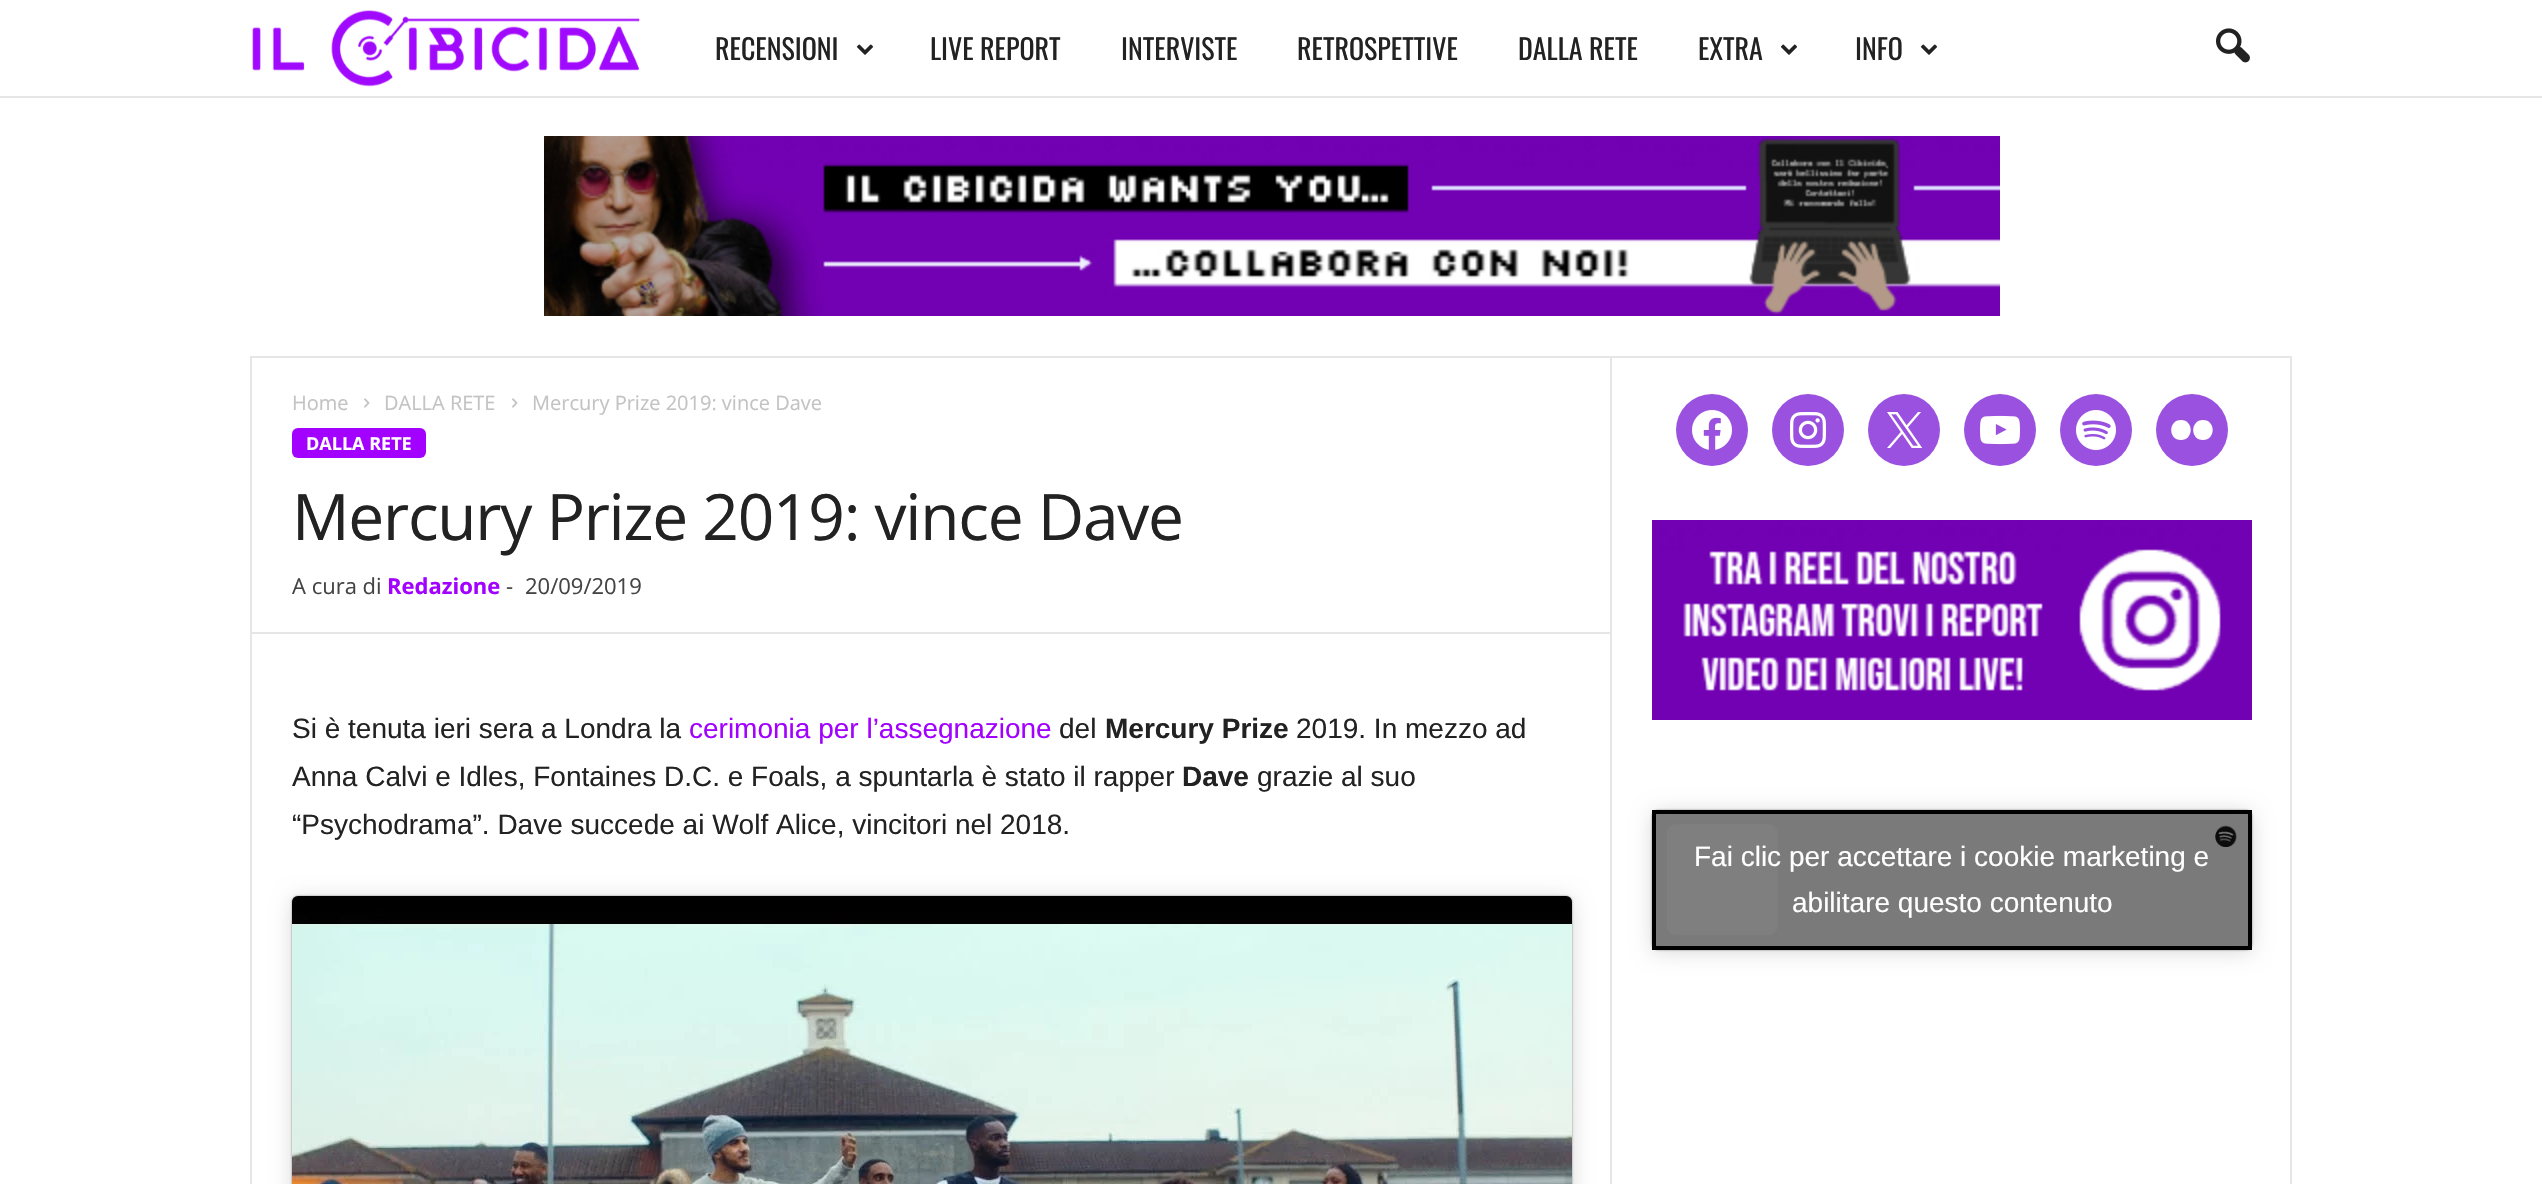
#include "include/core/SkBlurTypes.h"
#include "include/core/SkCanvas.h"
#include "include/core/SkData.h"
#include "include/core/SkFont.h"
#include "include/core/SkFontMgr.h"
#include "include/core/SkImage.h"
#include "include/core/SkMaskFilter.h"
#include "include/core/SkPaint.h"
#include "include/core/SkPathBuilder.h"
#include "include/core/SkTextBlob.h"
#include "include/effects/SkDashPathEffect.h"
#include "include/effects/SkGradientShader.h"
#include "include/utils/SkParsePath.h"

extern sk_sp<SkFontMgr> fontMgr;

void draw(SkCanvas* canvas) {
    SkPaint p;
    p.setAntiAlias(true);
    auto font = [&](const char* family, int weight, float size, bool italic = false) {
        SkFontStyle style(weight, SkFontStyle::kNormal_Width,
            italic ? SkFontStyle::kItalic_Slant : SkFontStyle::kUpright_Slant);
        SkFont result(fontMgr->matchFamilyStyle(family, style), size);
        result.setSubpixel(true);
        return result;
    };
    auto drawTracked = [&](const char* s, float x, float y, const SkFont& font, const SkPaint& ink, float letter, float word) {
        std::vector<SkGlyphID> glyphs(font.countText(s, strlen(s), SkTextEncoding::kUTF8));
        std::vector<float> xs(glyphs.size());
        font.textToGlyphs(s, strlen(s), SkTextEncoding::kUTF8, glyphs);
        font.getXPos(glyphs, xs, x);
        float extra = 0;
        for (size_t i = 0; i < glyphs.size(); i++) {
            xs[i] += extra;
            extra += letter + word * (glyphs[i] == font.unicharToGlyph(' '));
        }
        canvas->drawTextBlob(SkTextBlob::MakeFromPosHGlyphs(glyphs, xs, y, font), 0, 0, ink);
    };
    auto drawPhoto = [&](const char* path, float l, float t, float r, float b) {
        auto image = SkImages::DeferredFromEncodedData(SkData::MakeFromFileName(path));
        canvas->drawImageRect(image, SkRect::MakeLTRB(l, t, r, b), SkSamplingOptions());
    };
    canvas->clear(0xFFFFFFFF);
    p.setColor(0xFFE6E6E6);
    canvas->drawRect(SkRect::MakeLTRB(0, 96, 2542, 98), p);
    drawPhoto("media/1.png", 252, 10, 640, 87);
    auto font1 = font("Oswald", 400, 28);
    p.setColor(0xFF222222);
    canvas->drawString("RECENSIONI", 715, 60, font1, p);
    drawPhoto("media/2.png", 856, 44, 874, 55);
    {
        const struct { const char* s; float x, y; } items[] = {
            {"LIVE REPORT", 930, 60},
            {"INTERVISTE", 1121, 60},
            {"RETROSPETTIVE", 1297, 60},
            {"DALLA RETE", 1518, 60},
            {"EXTRA", 1698, 60},
        };
        for (auto [s, x, y] : items) {
            canvas->drawString(s, x, y, font1, p);
        }
    }
    drawPhoto("media/2.png", 1780, 44, 1798, 55);
    canvas->drawString("INFO", 1855, 60, font1, p);
    drawPhoto("media/2.png", 1920, 44, 1938, 55);
    drawPhoto("media/3.png", 2216, 28, 2250, 63);
    p.setColor(0xFFE6E6E6);
    canvas->drawRect(SkRect::MakeLTRB(250, 356, 2292, 358), p);
    drawPhoto("media/4.png", 544, 136, 2000, 316);
    canvas->drawRect(SkRect::MakeLTRB(250, 358, 252, 1184), p);
    auto font2 = font("Open Sans", 400, 20);
    p.setColor(0xFFC3C3C3);
    canvas->drawString("Home", 292, 410, font2, p);
    drawPhoto("media/5.png", 364, 398, 370, 408);
    canvas->drawString("DALLA RETE", 384, 410, font2, p);
    drawPhoto("media/5.png", 512, 398, 518, 408);
    canvas->drawString("Mercury Prize 2019: vince Dave", 532, 410, font2, p);
    p.setColor(0xFFA200FF);
    canvas->drawRoundRect(SkRect::MakeLTRB(292, 428, 426, 458), 6, 6, p);
    auto font3 = font("Open Sans", 700, 18);
    p.setColor(0xFFFFFFFF);
    canvas->drawString("DALLA RETE", 306, 450, font3, p);
    auto font4 = font("Open Sans", 400, 64);
    p.setColor(0xFF222222);
    drawTracked("Mercury Prize 2019: vince Dave", 292, 540, font4, p, -1.25f, 0);
    auto font5 = font("Open Sans", 400, 22);
    p.setColor(0xFF444444);
    canvas->drawString("A cura di", 292, 594, font5, p);
    auto font6 = font("Open Sans", 700, 22);
    p.setColor(0xFFA200FF);
    canvas->drawString("Redazione", 387, 594, font6, p);
    p.setColor(0xFF444444);
    canvas->drawString("-", 506, 594, font5, p);
    canvas->drawString("20/09/2019", 525, 594, font5, p);
    p.setColor(0xFFE6E6E6);
    canvas->drawRect(SkRect::MakeLTRB(252, 632, 1610, 634), p);
    auto font7 = font("Liberation Sans", 400, 28);
    p.setColor(0xFF222222);
    canvas->drawString("Si è tenuta ieri sera a Londra la", 292, 738, font7, p);
    p.setColor(0xFFA200FF);
    canvas->drawString("cerimonia per l’assegnazione", 689, 738, font7, p);
    p.setColor(0xFF222222);
    canvas->drawString("del", 1059, 738, font7, p);
    auto font8 = font("Liberation Sans", 700, 28);
    canvas->drawString("Mercury Prize", 1105, 738, font8, p);
    canvas->drawString("2019. In mezzo ad", 1296, 738, font7, p);
    canvas->drawString("Anna Calvi e Idles, Fontaines D.C. e Foals, a spuntarla è stato il rapper", 292, 786, font7, p);
    canvas->drawString("Dave", 1182, 786, font8, p);
    canvas->drawString("grazie al suo", 1257, 786, font7, p);
    canvas->drawString("“Psychodrama”. Dave succede ai Wolf Alice, vincitori nel 2018.", 292, 834, font7, p);
    p.setColor(0x26000000);
    p.setMaskFilter(SkMaskFilter::MakeBlur(kNormal_SkBlurStyle, 10));
    canvas->drawRoundRect(SkRect::MakeLTRB(292, 898, 1572, 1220), 6, 6, p);
    p.setMaskFilter(nullptr);
    p.setColor(0x80000000);
    p.setMaskFilter(SkMaskFilter::MakeBlur(kNormal_SkBlurStyle, 1));
    canvas->drawRoundRect(SkRect::MakeLTRB(292, 896, 1572, 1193), 6, 6, p);
    p.setMaskFilter(nullptr);
    drawPhoto("media/6.png", 292, 896, 1572, 1184);
    p.setColor(0xFFE6E6E6);
    canvas->drawRect(SkRect::MakeLTRB(1610, 358, 1612, 1184), p);
    p.setColor(0xFF9B51E0);
    canvas->drawCircle(1712, 430, 36, p);
    drawPhoto("media/7.png", 1692, 410, 1732, 450);
    canvas->drawCircle(1808, 430, 36, p);
    drawPhoto("media/8.png", 1790, 412, 1826, 448);
    canvas->drawCircle(1904, 430, 36, p);
    drawPhoto("media/9.png", 1887, 412, 1923, 448);
    canvas->drawCircle(2000, 430, 36, p);
    drawPhoto("media/10.png", 1980, 415, 2020, 445);
    canvas->drawCircle(2096, 430, 36, p);
    drawPhoto("media/11.png", 2076, 410, 2116, 450);
    canvas->drawCircle(2192, 430, 36, p);
    p.setColor(0xFFFFFFFF);
    canvas->drawPath(SkPathBuilder().moveTo(2181, 420).cubicTo(2168, 420, 2168, 440, 2181, 440).cubicTo(2194, 440, 2194, 420, 2181, 420).close().moveTo(2203, 420).cubicTo(2190, 420, 2190, 440, 2203, 440).cubicTo(2216, 440, 2216, 420, 2203, 420).close().detach(), p);
    drawPhoto("media/12.png", 1652, 520, 2252, 720);
    p.setColor(0x26000000);
    p.setMaskFilter(SkMaskFilter::MakeBlur(kNormal_SkBlurStyle, 10));
    canvas->drawRoundRect(SkRect::MakeLTRB(1652, 812, 2252, 952), 6, 6, p);
    p.setMaskFilter(nullptr);
    p.setColor(0x80000000);
    p.setMaskFilter(SkMaskFilter::MakeBlur(kNormal_SkBlurStyle, 1));
    canvas->drawRoundRect(SkRect::MakeLTRB(1652, 810, 2252, 950), 6, 6, p);
    p.setMaskFilter(nullptr);
    drawPhoto("media/13.png", 1656, 814, 2248, 946);
    canvas->drawRect(SkRect::MakeLTRB(1654, 812, 2250, 948), p);
    p.setStyle(SkPaint::kStroke_Style);
    p.setStrokeWidth(4);
    p.setColor(0xFF000000);
    canvas->drawRect(SkRect::MakeLTRB(1654, 812, 2250, 948), p);
    p.setStyle(SkPaint::kFill_Style);
    p.setColor(0xFFFFFFFF);
    canvas->drawString("Fai clic per accettare i cookie marketing e", 1694, 866, font7, p);
    canvas->drawString("abilitare questo contenuto", 1792, 912, font7, p);
    p.setColor(0xFFE6E6E6);
    canvas->drawRect(SkRect::MakeLTRB(2290, 358, 2292, 1184), p);
}
